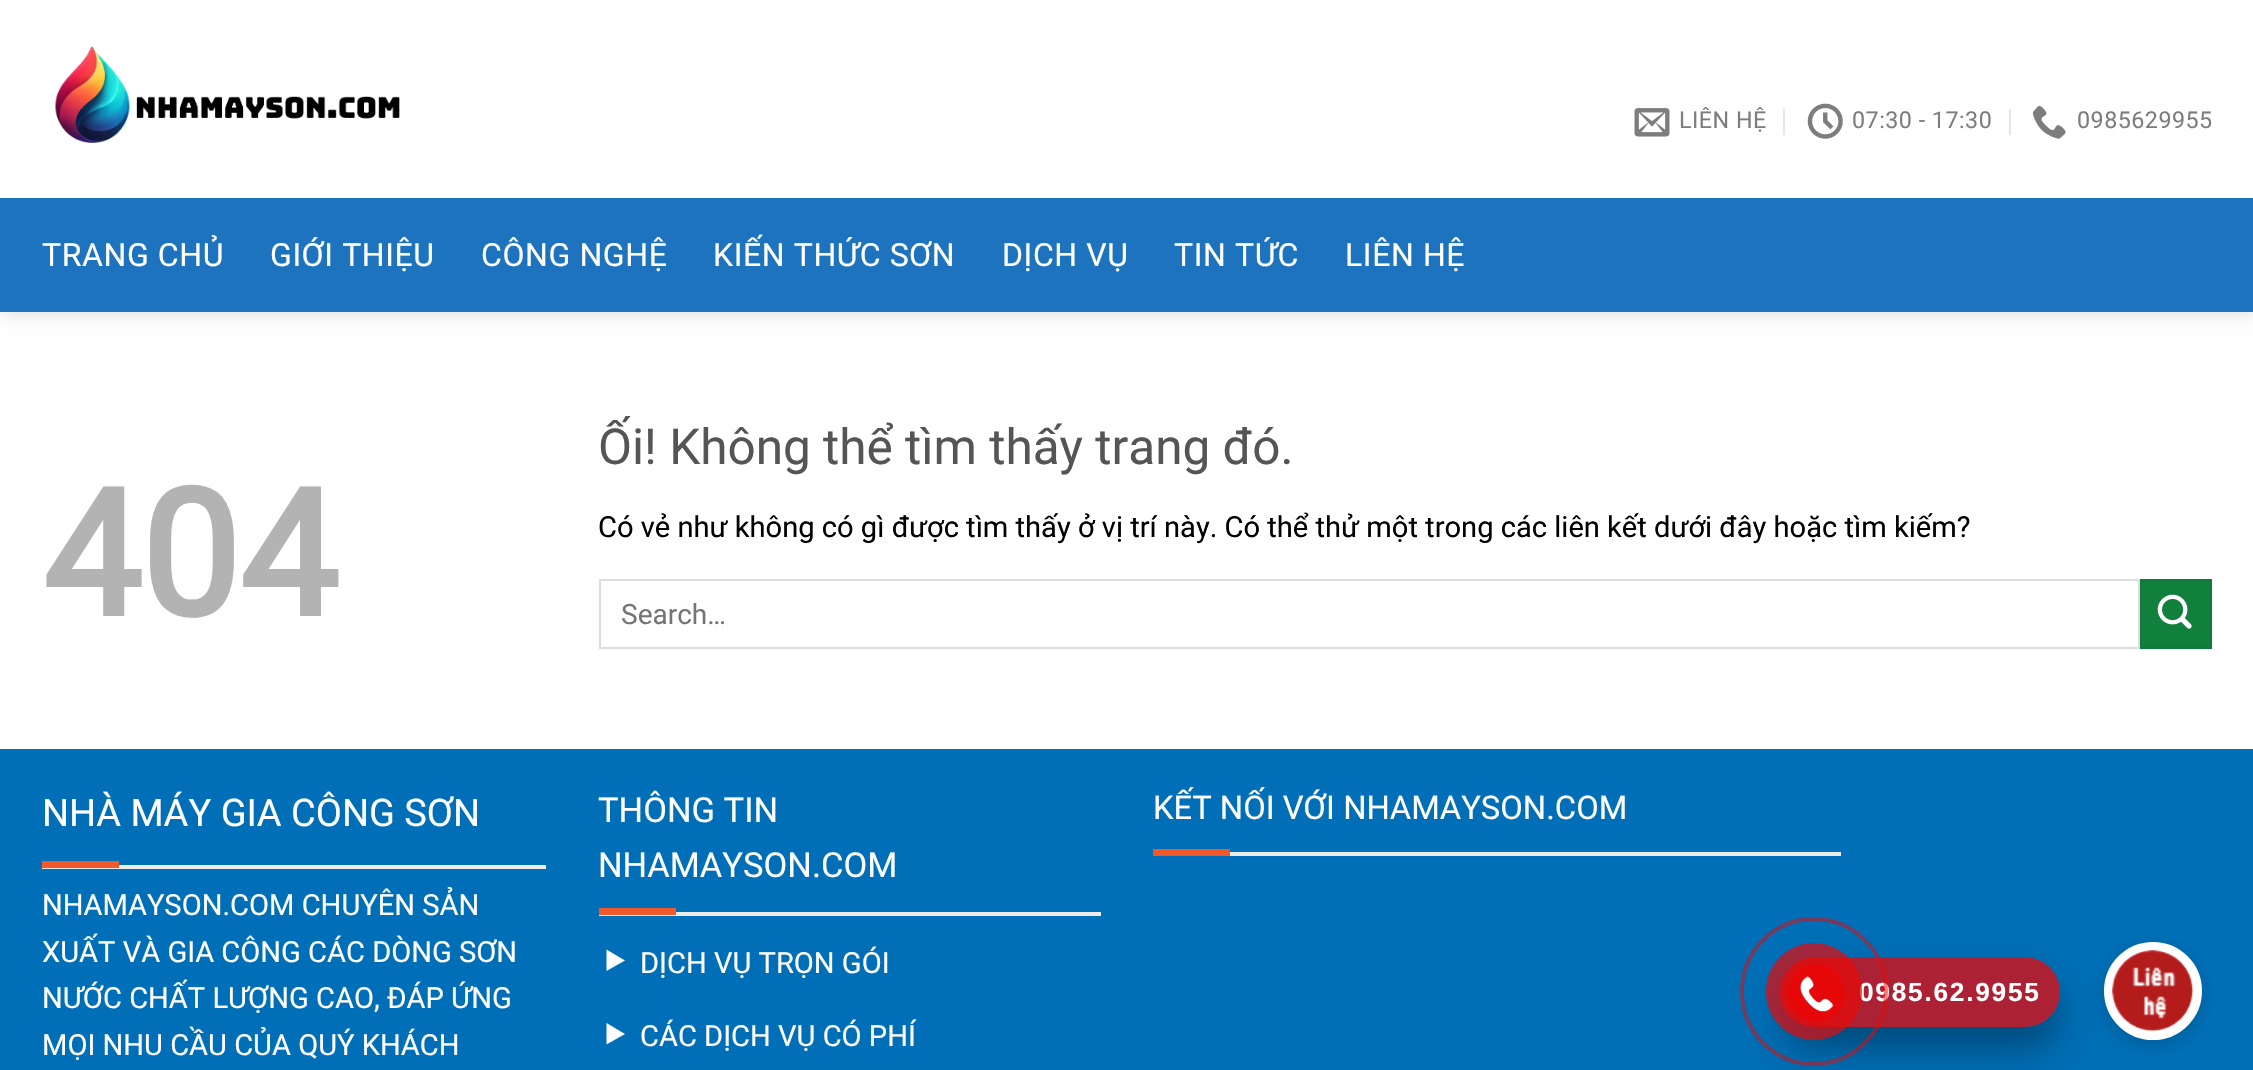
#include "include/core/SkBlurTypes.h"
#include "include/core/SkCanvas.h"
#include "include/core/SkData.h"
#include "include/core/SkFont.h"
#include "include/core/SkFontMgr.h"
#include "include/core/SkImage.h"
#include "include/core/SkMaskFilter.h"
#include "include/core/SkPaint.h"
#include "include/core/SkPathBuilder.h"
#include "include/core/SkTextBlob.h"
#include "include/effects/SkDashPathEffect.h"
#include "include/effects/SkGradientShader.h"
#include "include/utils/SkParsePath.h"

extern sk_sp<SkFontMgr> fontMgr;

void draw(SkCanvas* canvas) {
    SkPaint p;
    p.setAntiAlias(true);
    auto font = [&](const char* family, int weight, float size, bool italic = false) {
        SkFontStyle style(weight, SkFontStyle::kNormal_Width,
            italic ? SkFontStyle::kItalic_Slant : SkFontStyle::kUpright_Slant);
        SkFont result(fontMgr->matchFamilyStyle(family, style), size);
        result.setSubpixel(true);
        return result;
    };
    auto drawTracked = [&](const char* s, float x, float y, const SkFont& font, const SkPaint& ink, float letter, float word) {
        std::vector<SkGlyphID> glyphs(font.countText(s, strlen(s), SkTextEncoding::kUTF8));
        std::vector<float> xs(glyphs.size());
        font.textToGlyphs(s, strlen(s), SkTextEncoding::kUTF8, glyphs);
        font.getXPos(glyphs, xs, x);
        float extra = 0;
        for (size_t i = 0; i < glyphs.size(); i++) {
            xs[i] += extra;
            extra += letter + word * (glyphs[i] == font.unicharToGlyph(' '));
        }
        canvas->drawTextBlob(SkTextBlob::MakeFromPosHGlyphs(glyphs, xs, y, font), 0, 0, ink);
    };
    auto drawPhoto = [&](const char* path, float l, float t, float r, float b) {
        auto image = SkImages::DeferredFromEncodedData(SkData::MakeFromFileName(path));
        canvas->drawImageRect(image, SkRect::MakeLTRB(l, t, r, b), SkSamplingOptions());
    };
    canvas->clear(0xFFFFFFFF);
    p.setColor(0x26000000);
    p.setMaskFilter(SkMaskFilter::MakeBlur(kNormal_SkBlurStyle, 9));
    canvas->drawRect(SkRect::MakeLTRB(2, 2, 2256, 313), p);
    p.setMaskFilter(nullptr);
    p.setColor(0xFFFFFFFF);
    canvas->drawRect(SkRect::MakeLTRB(0, 0, 2253, 198), p);
    drawPhoto("media/1.png", 55, 46, 400, 143);
    drawPhoto("media/2.png", 1634, 108, 1670, 137);
    auto font1 = font("Roboto", 400, 23.25f);
    p.setColor(0xFF7D7D7D);
    drawTracked("LIÊN HỆ", 1679, 128, font1, p, 0.5f, 0);
    p.setColor(0xFFE6E6E6);
    canvas->drawRect(SkRect::MakeLTRB(1783, 109, 1785, 135), p);
    drawPhoto("media/3.png", 1807, 103, 1843, 139);
    p.setColor(0xFF7D7D7D);
    drawTracked("07:30 - 17:30", 1852, 128, font1, p, 0.5f, 0);
    p.setColor(0xFFE6E6E6);
    canvas->drawRect(SkRect::MakeLTRB(2009, 109, 2011, 135), p);
    drawPhoto("media/4.png", 2032, 105, 2066, 139);
    p.setColor(0xFF7D7D7D);
    drawTracked("0985629955", 2077, 128, font1, p, 0.5f, 0);
    p.setColor(0xFF1E73BE);
    canvas->drawRect(SkRect::MakeLTRB(0, 198, 2253, 312), p);
    auto font2 = font("Roboto", 400, 32);
    p.setColor(0xFFFFFFFF);
    {
        const struct { const char* s; float x, y; } items[] = {
            {"TRANG CHỦ", 42, 266},
            {"GIỚI THIỆU", 270, 266},
            {"CÔNG NGHỆ", 481, 266},
            {"KIẾN THỨC SƠN", 713, 266},
            {"DỊCH VỤ", 1002, 266},
            {"TIN TỨC", 1174, 266},
            {"LIÊN HỆ", 1345, 266},
        };
        for (auto [s, x, y] : items) {
            drawTracked(s, x, y, font2, p, 0.6f, 0);
        }
    }
    auto font3 = font("Roboto", 700, 175);
    p.setColor(0xFFB3B3B3);
    canvas->drawString("404", 42, 616, font3, p);
    auto font4 = font("Roboto", 400, 49.5f);
    p.setColor(0xFF555555);
    canvas->drawString("Ối! Không thể tìm thấy trang đó.", 598, 464, font4, p);
    auto font5 = font("Roboto", 400, 29.1f);
    p.setColor(0xFF000000);
    canvas->drawString("Có vẻ như không có gì được tìm thấy ở vị trí này. Có thể thử một trong các liên kết dưới đây hoặc tìm kiếm?", 598, 537, font5, p);
    p.setStyle(SkPaint::kStroke_Style);
    p.setStrokeWidth(2);
    p.setColor(0xFFDDDDDD);
    canvas->drawRect(SkRect::MakeLTRB(600, 580, 2139, 648), p);
    auto font6 = font("Roboto", 400, 28);
    p.setStyle(SkPaint::kFill_Style);
    p.setColor(0xFF757575);
    canvas->drawString("Search…", 621, 624, font6, p);
    p.setColor(0xFF11803D);
    canvas->drawRect(SkRect::MakeLTRB(2141, 580, 2211, 648), p);
    p.setStyle(SkPaint::kStroke_Style);
    p.setColor(0xFF107A3A);
    canvas->drawRect(SkRect::MakeLTRB(2141, 580, 2211, 648), p);
    drawPhoto("media/5.png", 2157, 594, 2192, 629);
    p.setStyle(SkPaint::kFill_Style);
    p.setColor(0xFF006FB7);
    canvas->drawRect(SkRect::MakeLTRB(0, 749, 2253, 1070), p);
    p.setColor(0xFFECECEC);
    canvas->drawRect(SkRect::MakeLTRB(42, 865, 546, 869), p);
    auto font7 = font("Roboto", 400, 38);
    p.setColor(0xFFFFFFFF);
    canvas->drawString("NHÀ MÁY GIA CÔNG SƠN", 42, 826, font7, p);
    p.setColor(0xFFF1592A);
    canvas->drawRect(SkRect::MakeLTRB(42, 861, 119, 868), p);
    p.setColor(0xFFFFFFFF);
    {
        const struct { const char* s; float x, y; } items[] = {
            {"NHAMAYSON.COM CHUYÊN SẢN", 42, 915},
            {"XUẤT VÀ GIA CÔNG CÁC DÒNG SƠN", 42, 962},
            {"NƯỚC CHẤT LƯỢNG CAO, ĐÁP ỨNG", 42, 1008},
            {"MỌI NHU CẦU CỦA QUÝ KHÁCH", 42, 1055},
        };
        for (auto [s, x, y] : items) {
            canvas->drawString(s, x, y, font5, p);
        }
    }
    p.setColor(0xFFECECEC);
    canvas->drawRect(SkRect::MakeLTRB(599, 912, 1101, 916), p);
    auto font8 = font("Roboto", 400, 34.5f);
    p.setColor(0xFFFFFFFF);
    canvas->drawString("THÔNG TIN", 598, 822, font8, p);
    canvas->drawString("NHAMAYSON.COM", 598, 877, font8, p);
    p.setColor(0xFFF1592A);
    canvas->drawRect(SkRect::MakeLTRB(599, 908, 676, 915), p);
    p.setColor(0xFFFFFFFF);
    canvas->drawPath(SkPathBuilder().moveTo(606.5f, 949.5f).lineTo(625, 960.5f).lineTo(606.5f, 971).close().detach(), p);
    canvas->drawString("DỊCH VỤ TRỌN GÓI", 640, 973, font5, p);
    canvas->drawPath(SkPathBuilder().moveTo(606.5f, 1023).lineTo(625, 1034).lineTo(606.5f, 1044.5f).close().detach(), p);
    canvas->drawString("CÁC DỊCH VỤ CÓ PHÍ", 640, 1046, font5, p);
    p.setColor(0xFFECECEC);
    canvas->drawRect(SkRect::MakeLTRB(1230, 852, 1841, 856), p);
    auto font9 = font("Roboto", 400, 32.75f);
    p.setColor(0xFFFFFFFF);
    canvas->drawString("KẾT NỐI VỚI NHAMAYSON.COM", 1153, 819, font9, p);
    p.setColor(0xFFF1592A);
    canvas->drawRect(SkRect::MakeLTRB(1153, 849, 1230, 856), p);
    canvas->save();
    canvas->clipPath(SkPathBuilder(SkPathFillType::kEvenOdd).moveTo(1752, 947).lineTo(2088, 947).lineTo(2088, 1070).lineTo(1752, 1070).close().moveTo(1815, 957).lineTo(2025, 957).cubicTo(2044.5f, 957, 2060, 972.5f, 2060, 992).cubicTo(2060, 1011.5f, 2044.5f, 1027, 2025, 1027).lineTo(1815, 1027).cubicTo(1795.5f, 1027, 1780, 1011.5f, 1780, 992).cubicTo(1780, 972.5f, 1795.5f, 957, 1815, 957).close().detach(), true);
    p.setColor(0x1A000000);
    p.setMaskFilter(SkMaskFilter::MakeBlur(kNormal_SkBlurStyle, 9));
    canvas->drawRoundRect(SkRect::MakeLTRB(1780, 975, 2060, 1045), 35, 35, p);
    p.setMaskFilter(nullptr);
    canvas->restore();
    canvas->save();
    canvas->clipPath(SkPathBuilder(SkPathFillType::kEvenOdd).moveTo(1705, 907).lineTo(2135, 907).lineTo(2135, 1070).lineTo(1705, 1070).close().moveTo(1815, 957).lineTo(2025, 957).cubicTo(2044.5f, 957, 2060, 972.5f, 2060, 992).cubicTo(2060, 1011.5f, 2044.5f, 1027, 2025, 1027).lineTo(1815, 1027).cubicTo(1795.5f, 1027, 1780, 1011.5f, 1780, 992).cubicTo(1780, 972.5f, 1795.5f, 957, 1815, 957).close().detach(), true);
    p.setColor(0x40000000);
    p.setMaskFilter(SkMaskFilter::MakeBlur(kNormal_SkBlurStyle, 24.5f));
    canvas->drawRoundRect(SkRect::MakeLTRB(1780, 982, 2060, 1052), 35, 35, p);
    p.setMaskFilter(nullptr);
    canvas->restore();
    p.setColor(0xBFE60808);
    canvas->drawRoundRect(SkRect::MakeLTRB(1780, 957, 2060, 1027), 35, 35, p);
    auto font10 = font("Liberation Sans", 700, 26.25f);
    p.setColor(0xFFFFFFFF);
    drawTracked("0985.62.9955", 1859, 1001, font10, p, 1.75f, 0);
    p.setStyle(SkPaint::kStroke_Style);
    p.setStrokeWidth(4);
    p.setColor(0x80E60808);
    canvas->drawRoundRect(SkRect::MakeLTRB(1742, 919, 1886, 1064), 72, 72, p);
    p.setStyle(SkPaint::kFill_Style);
    p.setColor(0xB3E60808);
    canvas->drawRoundRect(SkRect::MakeLTRB(1766, 943, 1862, 1040), 48, 48, p);
    p.setColor(0xFFE60808);
    canvas->drawCircle(1816, 993, 29, p);
    drawPhoto("media/6.png", 1800, 976, 1834, 1012);
    p.setColor(0x14000000);
    p.setMaskFilter(SkMaskFilter::MakeBlur(kNormal_SkBlurStyle, 9));
    canvas->drawRoundRect(SkRect::MakeLTRB(2104, 947, 2202, 1045), 49, 49, p);
    p.setMaskFilter(nullptr);
    p.setMaskFilter(SkMaskFilter::MakeBlur(kNormal_SkBlurStyle, 9));
    canvas->drawRoundRect(SkRect::MakeLTRB(2104, 947, 2202, 1045), 49, 49, p);
    p.setMaskFilter(nullptr);
    p.setColor(0xFFFFFFFF);
    canvas->drawCircle(2153, 991, 44.5f, p);
    p.setStyle(SkPaint::kStroke_Style);
    p.setStrokeWidth(9);
    canvas->drawCircle(2153, 991, 44.5f, p);
    drawPhoto("media/7.png", 2112, 950, 2194, 1032);
}
